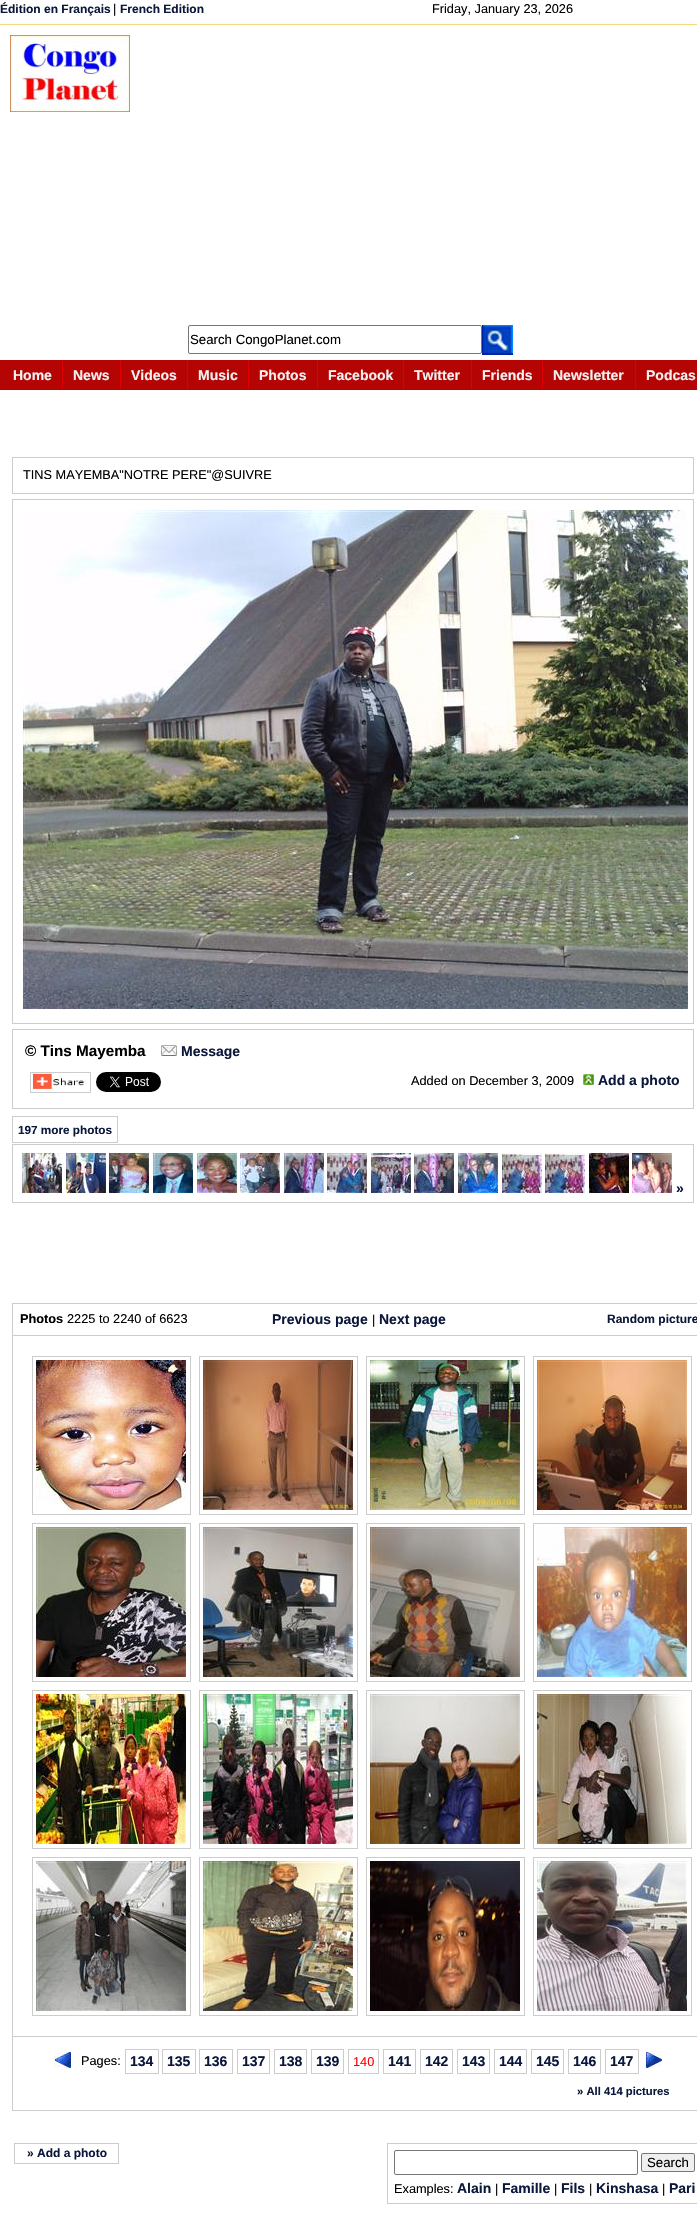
#include "include/core/SkBlurTypes.h"
#include "include/core/SkCanvas.h"
#include "include/core/SkData.h"
#include "include/core/SkFont.h"
#include "include/core/SkFontMgr.h"
#include "include/core/SkImage.h"
#include "include/core/SkMaskFilter.h"
#include "include/core/SkPaint.h"
#include "include/core/SkPathBuilder.h"
#include "include/core/SkTextBlob.h"
#include "include/effects/SkDashPathEffect.h"
#include "include/effects/SkGradientShader.h"
#include "include/utils/SkParsePath.h"

extern sk_sp<SkFontMgr> fontMgr;

void draw(SkCanvas* canvas) {
    SkPaint p;
    p.setAntiAlias(true);
    auto font = [&](const char* family, int weight, float size, bool italic = false) {
        SkFontStyle style(weight, SkFontStyle::kNormal_Width,
            italic ? SkFontStyle::kItalic_Slant : SkFontStyle::kUpright_Slant);
        SkFont result(fontMgr->matchFamilyStyle(family, style), size);
        result.setSubpixel(true);
        return result;
    };
    auto drawPhoto = [&](const char* path, float l, float t, float r, float b) {
        auto image = SkImages::DeferredFromEncodedData(SkData::MakeFromFileName(path));
        canvas->drawImageRect(image, SkRect::MakeLTRB(l, t, r, b), SkSamplingOptions());
    };
    canvas->clear(0xFFFFFFFF);
    p.setColor(0xFFF5DA81);
    canvas->drawRect(SkRect::MakeLTRB(0, 24, 697, 25), p);
    auto font1 = font("Liberation Sans", 700, 12);
    p.setColor(0xFF0B173B);
    canvas->drawString("Édition en Français", 0, 13, font1, p);
    auto font2 = font("Liberation Sans", 400, 12.75f);
    p.setColor(0xFF000000);
    canvas->drawString("|", 113, 13, font2, p);
    p.setColor(0xFF0B173B);
    canvas->drawString("French Edition", 120, 13, font1, p);
    p.setColor(0xFF000000);
    canvas->drawString("Friday, January 23, 2026", 432, 13, font2, p);
    drawPhoto("media/1.png", 10, 35, 130, 112);
    p.setStyle(SkPaint::kStroke_Style);
    p.setStrokeWidth(1);
    p.setColor(0xFF767676);
    canvas->drawRoundRect(SkRect::MakeLTRB(188.5f, 325.5f, 481.5f, 353.5f), 1.5f, 1.5f, p);
    auto font3 = font("Liberation Sans", 400, 13.25f);
    p.setStyle(SkPaint::kFill_Style);
    p.setColor(0xFF000000);
    canvas->drawString("Search CongoPlanet.com", 190, 344, font3, p);
    drawPhoto("media/2.png", 482, 325, 513, 355);
    p.setColor(0xFFB40404);
    canvas->drawRect(SkRect::MakeLTRB(0, 360, 697, 390), p);
    p.setColor(0xFFDF0101);
    canvas->drawRect(SkRect::MakeLTRB(62, 360, 63, 389), p);
    auto font4 = font("Liberation Sans", 700, 14);
    p.setColor(0xFFF2F2F2);
    canvas->drawString("Home", 13, 380, font4, p);
    p.setColor(0xFFDF0101);
    canvas->drawRect(SkRect::MakeLTRB(120, 360, 121, 389), p);
    p.setColor(0xFFF2F2F2);
    canvas->drawString("News", 73, 380, font4, p);
    p.setColor(0xFFDF0101);
    canvas->drawRect(SkRect::MakeLTRB(187, 360, 188, 389), p);
    p.setColor(0xFFF2F2F2);
    canvas->drawString("Videos", 131, 380, font4, p);
    p.setColor(0xFFDF0101);
    canvas->drawRect(SkRect::MakeLTRB(248, 360, 249, 389), p);
    p.setColor(0xFFF2F2F2);
    canvas->drawString("Music", 198, 380, font4, p);
    p.setColor(0xFFDF0101);
    canvas->drawRect(SkRect::MakeLTRB(317, 360, 318, 389), p);
    p.setColor(0xFFF2F2F2);
    canvas->drawString("Photos", 259, 380, font4, p);
    p.setColor(0xFFDF0101);
    canvas->drawRect(SkRect::MakeLTRB(403, 360, 404, 389), p);
    p.setColor(0xFFF2F2F2);
    canvas->drawString("Facebook", 328, 380, font4, p);
    p.setColor(0xFFDF0101);
    canvas->drawRect(SkRect::MakeLTRB(471, 360, 472, 389), p);
    p.setColor(0xFFF2F2F2);
    canvas->drawString("Twitter", 414, 380, font4, p);
    p.setColor(0xFFDF0101);
    canvas->drawRect(SkRect::MakeLTRB(542, 360, 543, 389), p);
    p.setColor(0xFFF2F2F2);
    canvas->drawString("Friends", 482, 380, font4, p);
    p.setColor(0xFFDF0101);
    canvas->drawRect(SkRect::MakeLTRB(635, 360, 636, 389), p);
    p.setColor(0xFFF2F2F2);
    canvas->drawString("Newsletter", 553, 380, font4, p);
    canvas->drawString("Podcas", 646, 380, font4, p);
    p.setStyle(SkPaint::kStroke_Style);
    p.setColor(0xFFCCCCCC);
    canvas->drawRect(SkRect::MakeLTRB(12.5f, 457.5f, 693.5f, 493.5f), p);
    p.setStyle(SkPaint::kFill_Style);
    p.setColor(0xFF000000);
    canvas->drawString("TINS MAYEMBA\"NOTRE PERE\"@SUIVRE", 23, 479, font2, p);
    p.setStyle(SkPaint::kStroke_Style);
    p.setColor(0xFFCCCCCC);
    canvas->drawRect(SkRect::MakeLTRB(12.5f, 499.5f, 693.5f, 1023.5f), p);
    drawPhoto("media/3.png", 23, 510, 688, 1009);
    canvas->drawRect(SkRect::MakeLTRB(12.5f, 1029.5f, 693.5f, 1108.5f), p);
    auto font5 = font("Liberation Sans", 700, 15.25f);
    p.setStyle(SkPaint::kFill_Style);
    p.setColor(0xFF000000);
    canvas->drawString("© Tins Mayemba", 25, 1056, font5, p);
    drawPhoto("media/4.png", 161, 1045, 177, 1056);
    p.setColor(0xFF0B173B);
    canvas->drawString("Message", 181, 1056, font4, p);
    p.setStyle(SkPaint::kStroke_Style);
    p.setColor(0xFFCCCCCC);
    canvas->drawRect(SkRect::MakeLTRB(30.5f, 1072.5f, 90.5f, 1092.5f), p);
    drawPhoto("media/5.png", 32, 1073, 84, 1089);
    drawPhoto("media/6.png", 96, 1072, 161, 1092);
    p.setStyle(SkPaint::kFill_Style);
    p.setColor(0xFF000000);
    canvas->drawString("Added on December 3, 2009", 411, 1085, font2, p);
    drawPhoto("media/7.png", 583, 1074, 594, 1085);
    p.setColor(0xFF0B173B);
    canvas->drawString("Add a photo", 598, 1085, font4, p);
    p.setStyle(SkPaint::kStroke_Style);
    p.setColor(0xFFCCCCCC);
    canvas->drawRect(SkRect::MakeLTRB(12.5f, 1116.5f, 117.5f, 1142.5f), p);
    auto font6 = font("Liberation Sans", 700, 11.75f);
    p.setStyle(SkPaint::kFill_Style);
    p.setColor(0xFF0B173B);
    canvas->drawString("197 more photos", 18, 1134, font6, p);
    p.setStyle(SkPaint::kStroke_Style);
    p.setColor(0xFFCCCCCC);
    canvas->drawRect(SkRect::MakeLTRB(12.5f, 1144.5f, 693.5f, 1202.5f), p);
    drawPhoto("media/8.png", 22, 1153, 62, 1193);
    drawPhoto("media/9.png", 66, 1153, 106, 1193);
    drawPhoto("media/10.png", 109, 1153, 149, 1193);
    drawPhoto("media/11.png", 153, 1153, 193, 1193);
    drawPhoto("media/12.png", 197, 1153, 237, 1193);
    drawPhoto("media/13.png", 240, 1153, 280, 1193);
    drawPhoto("media/14.png", 284, 1153, 324, 1193);
    drawPhoto("media/15.png", 327, 1153, 367, 1193);
    drawPhoto("media/16.png", 371, 1153, 411, 1193);
    drawPhoto("media/17.png", 414, 1153, 454, 1193);
    drawPhoto("media/18.png", 458, 1153, 498, 1193);
    drawPhoto("media/19.png", 502, 1153, 542, 1193);
    drawPhoto("media/19.png", 545, 1153, 585, 1193);
    drawPhoto("media/20.png", 589, 1153, 629, 1193);
    drawPhoto("media/21.png", 632, 1153, 672, 1193);
    p.setStyle(SkPaint::kFill_Style);
    p.setColor(0xFF0B173B);
    canvas->drawString("»", 676, 1193, font4, p);
    p.setStyle(SkPaint::kStroke_Style);
    p.setColor(0xFFCCCCCC);
    canvas->drawRect(SkRect::MakeLTRB(12.5f, 1303.5f, 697.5f, 2110.5f), p);
    p.setStyle(SkPaint::kFill_Style);
    canvas->drawRect(SkRect::MakeLTRB(13, 1335, 697, 1336), p);
    auto font7 = font("Liberation Sans", 700, 12.75f);
    p.setColor(0xFF000000);
    canvas->drawString("Photos", 20, 1323, font7, p);
    canvas->drawString("2225 to 2240 of 6623", 67, 1323, font2, p);
    p.setColor(0xFF0B173B);
    canvas->drawString("Previous page", 272, 1324, font4, p);
    p.setColor(0xFF000000);
    canvas->drawString("|", 372, 1324, font2, p);
    p.setColor(0xFF0B173B);
    canvas->drawString("Next page", 379, 1324, font4, p);
    canvas->drawString("Random picture", 607, 1323, font1, p);
    p.setStyle(SkPaint::kStroke_Style);
    p.setColor(0xFFCCCCCC);
    canvas->drawRect(SkRect::MakeLTRB(32.5f, 1356.5f, 190.5f, 1514.5f), p);
    drawPhoto("media/22.png", 36, 1360, 186, 1510);
    canvas->drawRect(SkRect::MakeLTRB(199.5f, 1356.5f, 357.5f, 1514.5f), p);
    drawPhoto("media/23.png", 203, 1360, 353, 1510);
    canvas->drawRect(SkRect::MakeLTRB(366.5f, 1356.5f, 524.5f, 1514.5f), p);
    drawPhoto("media/24.png", 370, 1360, 520, 1510);
    canvas->drawRect(SkRect::MakeLTRB(533.5f, 1356.5f, 691.5f, 1514.5f), p);
    drawPhoto("media/25.png", 537, 1360, 687, 1510);
    canvas->drawRect(SkRect::MakeLTRB(32.5f, 1523.5f, 190.5f, 1681.5f), p);
    drawPhoto("media/26.png", 36, 1527, 186, 1677);
    canvas->drawRect(SkRect::MakeLTRB(199.5f, 1523.5f, 357.5f, 1681.5f), p);
    drawPhoto("media/27.png", 203, 1527, 353, 1677);
    canvas->drawRect(SkRect::MakeLTRB(366.5f, 1523.5f, 524.5f, 1681.5f), p);
    drawPhoto("media/28.png", 370, 1527, 520, 1677);
    canvas->drawRect(SkRect::MakeLTRB(533.5f, 1523.5f, 691.5f, 1681.5f), p);
    drawPhoto("media/29.png", 537, 1527, 687, 1677);
    canvas->drawRect(SkRect::MakeLTRB(32.5f, 1690.5f, 190.5f, 1848.5f), p);
    drawPhoto("media/30.png", 36, 1694, 186, 1844);
    canvas->drawRect(SkRect::MakeLTRB(199.5f, 1690.5f, 357.5f, 1848.5f), p);
    drawPhoto("media/31.png", 203, 1694, 353, 1844);
    canvas->drawRect(SkRect::MakeLTRB(366.5f, 1690.5f, 524.5f, 1848.5f), p);
    drawPhoto("media/32.png", 370, 1694, 520, 1844);
    canvas->drawRect(SkRect::MakeLTRB(533.5f, 1690.5f, 691.5f, 1848.5f), p);
    drawPhoto("media/33.png", 537, 1694, 687, 1844);
    canvas->drawRect(SkRect::MakeLTRB(32.5f, 1857.5f, 190.5f, 2015.5f), p);
    drawPhoto("media/34.png", 36, 1861, 186, 2011);
    canvas->drawRect(SkRect::MakeLTRB(199.5f, 1857.5f, 357.5f, 2015.5f), p);
    drawPhoto("media/35.png", 203, 1861, 353, 2011);
    canvas->drawRect(SkRect::MakeLTRB(366.5f, 1857.5f, 524.5f, 2015.5f), p);
    drawPhoto("media/36.png", 370, 1861, 520, 2011);
    canvas->drawRect(SkRect::MakeLTRB(533.5f, 1857.5f, 691.5f, 2015.5f), p);
    drawPhoto("media/37.png", 537, 1861, 687, 2011);
    p.setStyle(SkPaint::kFill_Style);
    canvas->drawRect(SkRect::MakeLTRB(13, 2036, 697, 2037), p);
    drawPhoto("media/38.png", 54, 2051, 71, 2069);
    p.setColor(0xFF000000);
    canvas->drawString("Pages:", 81, 2065, font2, p);
    p.setStyle(SkPaint::kStroke_Style);
    p.setColor(0xFFCCCCCC);
    canvas->drawRect(SkRect::MakeLTRB(125.5f, 2049.5f, 158.5f, 2073.5f), p);
    p.setStyle(SkPaint::kFill_Style);
    p.setColor(0xFF0B173B);
    canvas->drawString("134", 130, 2066, font4, p);
    p.setStyle(SkPaint::kStroke_Style);
    p.setColor(0xFFCCCCCC);
    canvas->drawRect(SkRect::MakeLTRB(162.5f, 2049.5f, 195.5f, 2073.5f), p);
    p.setStyle(SkPaint::kFill_Style);
    p.setColor(0xFF0B173B);
    canvas->drawString("135", 167, 2066, font4, p);
    p.setStyle(SkPaint::kStroke_Style);
    p.setColor(0xFFCCCCCC);
    canvas->drawRect(SkRect::MakeLTRB(199.5f, 2049.5f, 232.5f, 2073.5f), p);
    p.setStyle(SkPaint::kFill_Style);
    p.setColor(0xFF0B173B);
    canvas->drawString("136", 204, 2066, font4, p);
    p.setStyle(SkPaint::kStroke_Style);
    p.setColor(0xFFCCCCCC);
    canvas->drawRect(SkRect::MakeLTRB(237.5f, 2049.5f, 269.5f, 2073.5f), p);
    p.setStyle(SkPaint::kFill_Style);
    p.setColor(0xFF0B173B);
    canvas->drawString("137", 242, 2066, font4, p);
    p.setStyle(SkPaint::kStroke_Style);
    p.setColor(0xFFCCCCCC);
    canvas->drawRect(SkRect::MakeLTRB(274.5f, 2049.5f, 306.5f, 2073.5f), p);
    p.setStyle(SkPaint::kFill_Style);
    p.setColor(0xFF0B173B);
    canvas->drawString("138", 279, 2066, font4, p);
    p.setStyle(SkPaint::kStroke_Style);
    p.setColor(0xFFCCCCCC);
    canvas->drawRect(SkRect::MakeLTRB(311.5f, 2049.5f, 343.5f, 2073.5f), p);
    p.setStyle(SkPaint::kFill_Style);
    p.setColor(0xFF0B173B);
    canvas->drawString("139", 316, 2066, font4, p);
    p.setStyle(SkPaint::kStroke_Style);
    p.setColor(0xFFCCCCCC);
    canvas->drawRect(SkRect::MakeLTRB(348.5f, 2049.5f, 378.5f, 2073.5f), p);
    p.setStyle(SkPaint::kFill_Style);
    p.setColor(0xFFFF0000);
    canvas->drawString("140", 353, 2066, font2, p);
    p.setStyle(SkPaint::kStroke_Style);
    p.setColor(0xFFCCCCCC);
    canvas->drawRect(SkRect::MakeLTRB(383.5f, 2049.5f, 415.5f, 2073.5f), p);
    p.setStyle(SkPaint::kFill_Style);
    p.setColor(0xFF0B173B);
    canvas->drawString("141", 388, 2066, font4, p);
    p.setStyle(SkPaint::kStroke_Style);
    p.setColor(0xFFCCCCCC);
    canvas->drawRect(SkRect::MakeLTRB(420.5f, 2049.5f, 452.5f, 2073.5f), p);
    p.setStyle(SkPaint::kFill_Style);
    p.setColor(0xFF0B173B);
    canvas->drawString("142", 425, 2066, font4, p);
    p.setStyle(SkPaint::kStroke_Style);
    p.setColor(0xFFCCCCCC);
    canvas->drawRect(SkRect::MakeLTRB(457.5f, 2049.5f, 489.5f, 2073.5f), p);
    p.setStyle(SkPaint::kFill_Style);
    p.setColor(0xFF0B173B);
    canvas->drawString("143", 462, 2066, font4, p);
    p.setStyle(SkPaint::kStroke_Style);
    p.setColor(0xFFCCCCCC);
    canvas->drawRect(SkRect::MakeLTRB(494.5f, 2049.5f, 526.5f, 2073.5f), p);
    p.setStyle(SkPaint::kFill_Style);
    p.setColor(0xFF0B173B);
    canvas->drawString("144", 499, 2066, font4, p);
    p.setStyle(SkPaint::kStroke_Style);
    p.setColor(0xFFCCCCCC);
    canvas->drawRect(SkRect::MakeLTRB(531.5f, 2049.5f, 563.5f, 2073.5f), p);
    p.setStyle(SkPaint::kFill_Style);
    p.setColor(0xFF0B173B);
    canvas->drawString("145", 536, 2066, font4, p);
    p.setStyle(SkPaint::kStroke_Style);
    p.setColor(0xFFCCCCCC);
    canvas->drawRect(SkRect::MakeLTRB(568.5f, 2049.5f, 600.5f, 2073.5f), p);
    p.setStyle(SkPaint::kFill_Style);
    p.setColor(0xFF0B173B);
    canvas->drawString("146", 573, 2066, font4, p);
    p.setStyle(SkPaint::kStroke_Style);
    p.setColor(0xFFCCCCCC);
    canvas->drawRect(SkRect::MakeLTRB(605.5f, 2049.5f, 638.5f, 2073.5f), p);
    p.setStyle(SkPaint::kFill_Style);
    p.setColor(0xFF0B173B);
    canvas->drawString("147", 610, 2066, font4, p);
    drawPhoto("media/39.png", 645, 2051, 662, 2069);
    auto font8 = font("Liberation Sans", 700, 11.25f);
    canvas->drawString("» All 414 pictures", 577, 2095, font8, p);
    p.setStyle(SkPaint::kStroke_Style);
    p.setColor(0xFFCCCCCC);
    canvas->drawRect(SkRect::MakeLTRB(14.5f, 2143.5f, 118.5f, 2163.5f), p);
    p.setStyle(SkPaint::kFill_Style);
    p.setColor(0xFF0B173B);
    canvas->drawString("» Add a photo", 27, 2157, font1, p);
    p.setStyle(SkPaint::kStroke_Style);
    p.setColor(0xFFCCCCCC);
    canvas->drawRect(SkRect::MakeLTRB(387.5f, 2143.5f, 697.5f, 2203.5f), p);
    p.setColor(0xFF767676);
    canvas->drawRoundRect(SkRect::MakeLTRB(394.5f, 2150.5f, 637.5f, 2174.5f), 1.5f, 1.5f, p);
    p.setStyle(SkPaint::kFill_Style);
    p.setColor(0xFFEFEFEF);
    canvas->drawRoundRect(SkRect::MakeLTRB(641.5f, 2153.5f, 694.5f, 2171.5f), 1.5f, 1.5f, p);
    p.setStyle(SkPaint::kStroke_Style);
    p.setColor(0xFF767676);
    canvas->drawRoundRect(SkRect::MakeLTRB(641.5f, 2153.5f, 694.5f, 2171.5f), 1.5f, 1.5f, p);
    p.setStyle(SkPaint::kFill_Style);
    p.setColor(0xFF000000);
    canvas->drawString("Search", 647, 2167, font3, p);
    canvas->drawString("Examples:", 394, 2193, font2, p);
    p.setColor(0xFF0B173B);
    canvas->drawString("Alain", 457, 2193, font4, p);
    p.setColor(0xFF000000);
    canvas->drawString("|", 495, 2193, font2, p);
    p.setColor(0xFF0B173B);
    canvas->drawString("Famille", 502, 2193, font4, p);
    p.setColor(0xFF000000);
    canvas->drawString("|", 554, 2193, font2, p);
    p.setColor(0xFF0B173B);
    canvas->drawString("Fils", 561, 2193, font4, p);
    p.setColor(0xFF000000);
    canvas->drawString("|", 589, 2193, font2, p);
    p.setColor(0xFF0B173B);
    canvas->drawString("Kinshasa", 596, 2193, font4, p);
    p.setColor(0xFF000000);
    canvas->drawString("|", 662, 2193, font2, p);
    p.setColor(0xFF0B173B);
    canvas->drawString("Pari", 669, 2193, font4, p);
}
